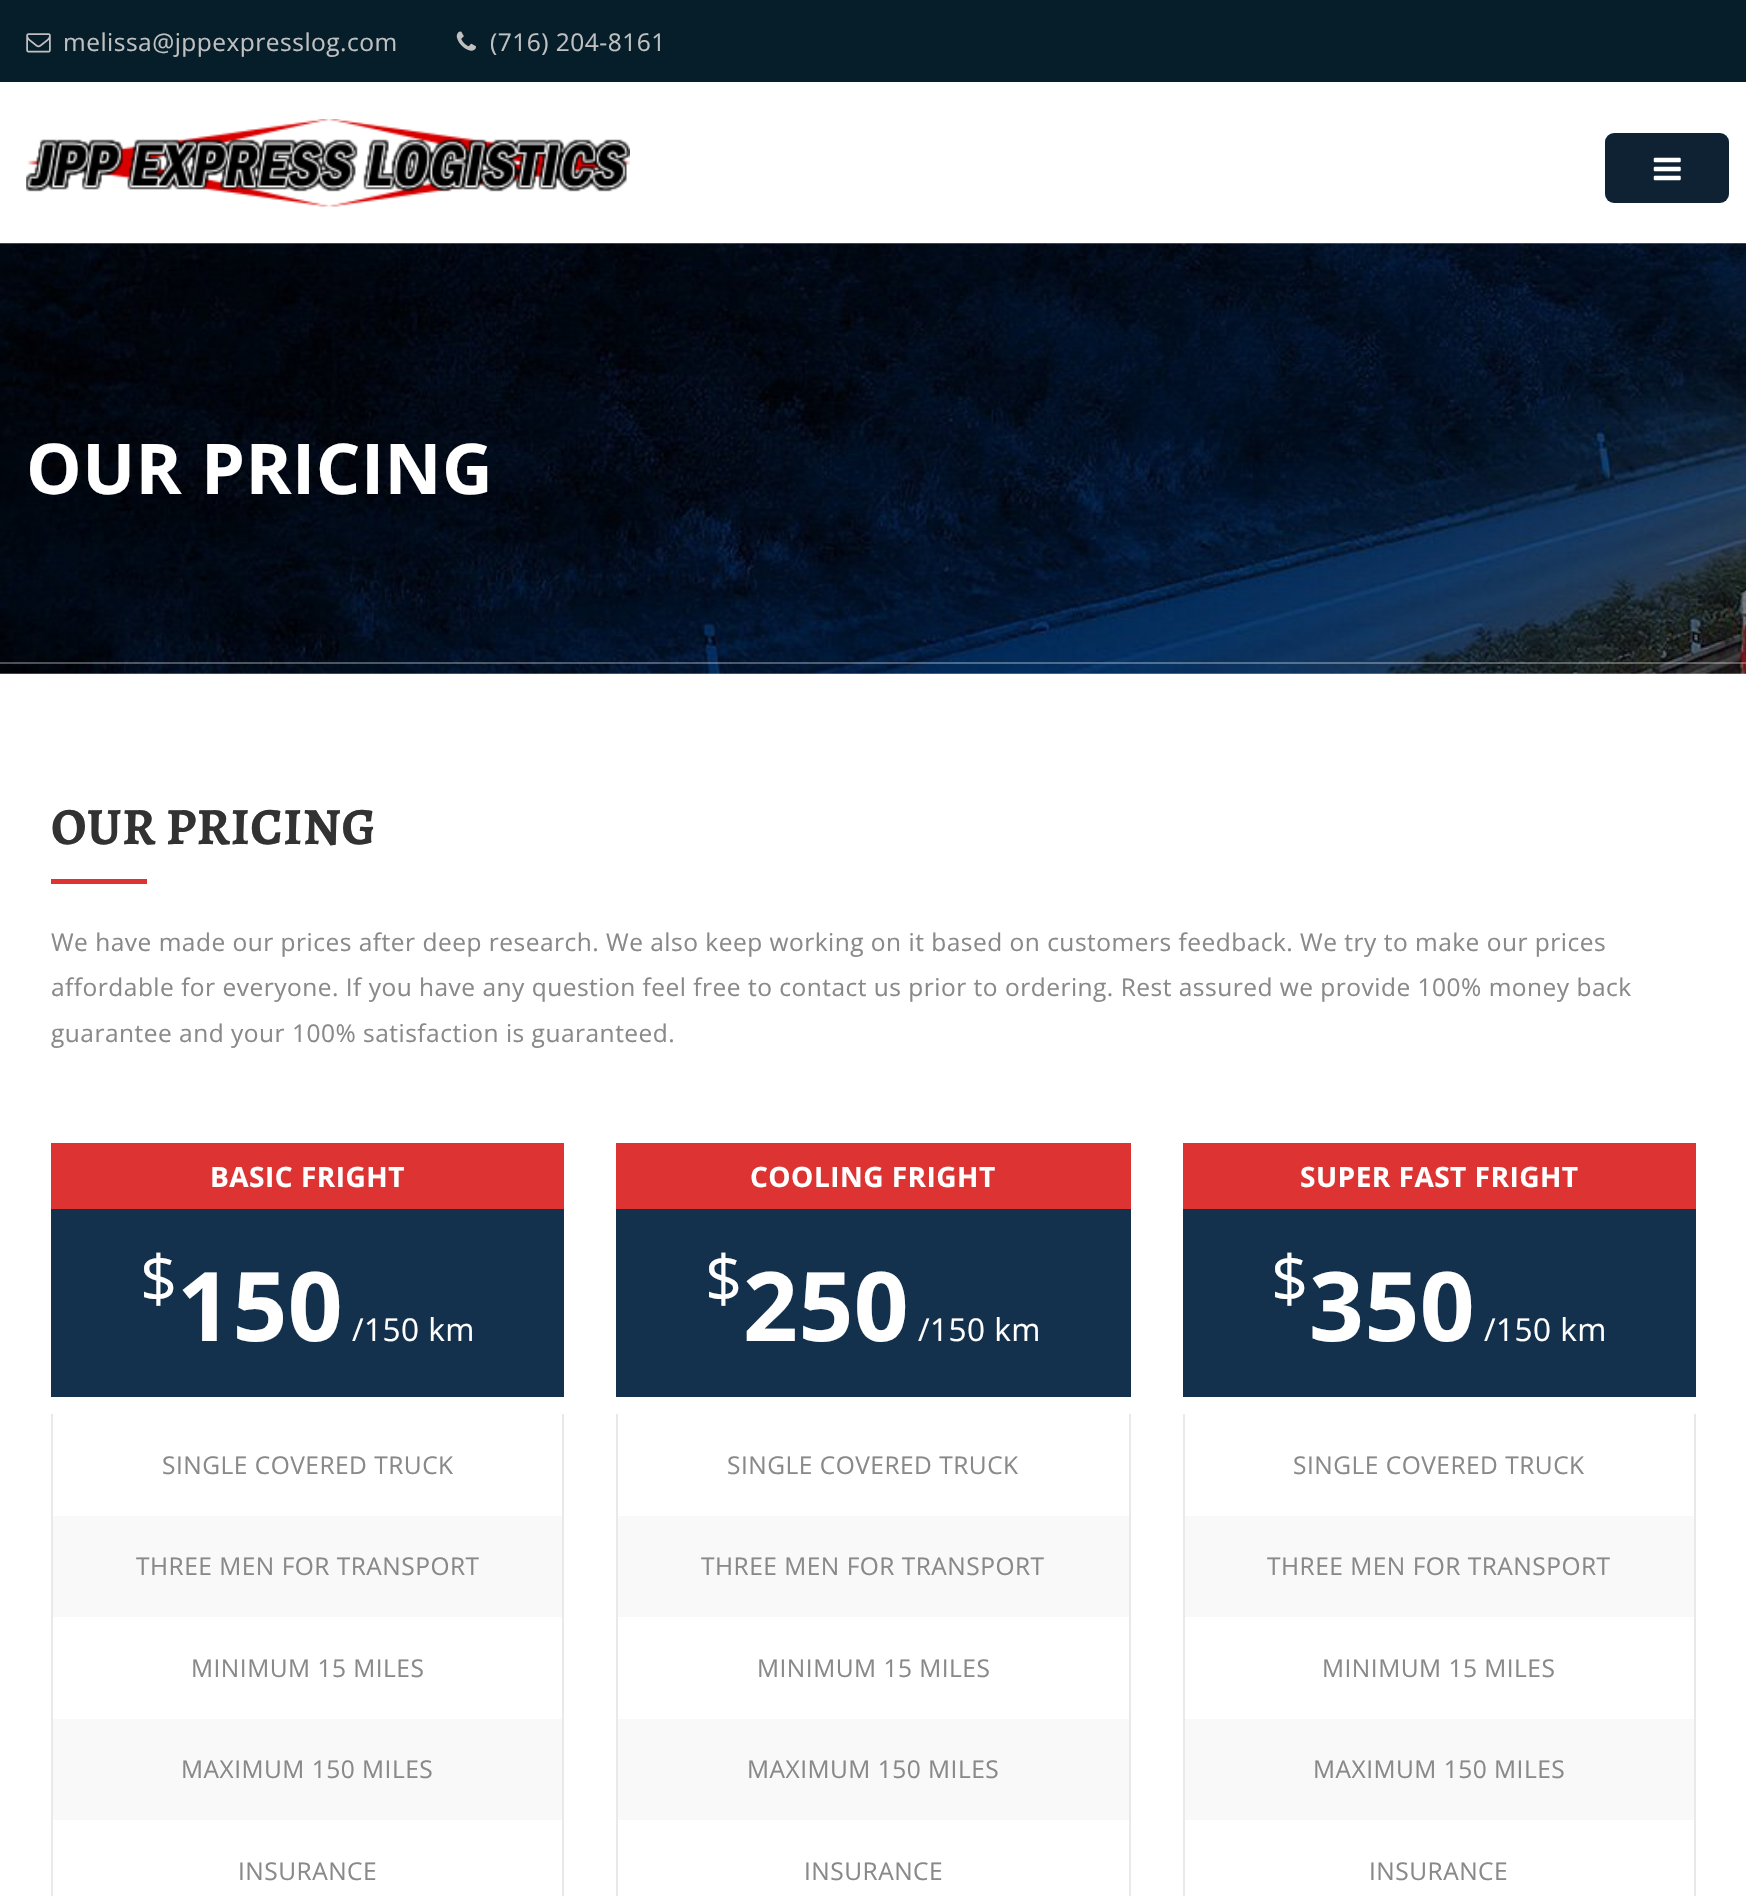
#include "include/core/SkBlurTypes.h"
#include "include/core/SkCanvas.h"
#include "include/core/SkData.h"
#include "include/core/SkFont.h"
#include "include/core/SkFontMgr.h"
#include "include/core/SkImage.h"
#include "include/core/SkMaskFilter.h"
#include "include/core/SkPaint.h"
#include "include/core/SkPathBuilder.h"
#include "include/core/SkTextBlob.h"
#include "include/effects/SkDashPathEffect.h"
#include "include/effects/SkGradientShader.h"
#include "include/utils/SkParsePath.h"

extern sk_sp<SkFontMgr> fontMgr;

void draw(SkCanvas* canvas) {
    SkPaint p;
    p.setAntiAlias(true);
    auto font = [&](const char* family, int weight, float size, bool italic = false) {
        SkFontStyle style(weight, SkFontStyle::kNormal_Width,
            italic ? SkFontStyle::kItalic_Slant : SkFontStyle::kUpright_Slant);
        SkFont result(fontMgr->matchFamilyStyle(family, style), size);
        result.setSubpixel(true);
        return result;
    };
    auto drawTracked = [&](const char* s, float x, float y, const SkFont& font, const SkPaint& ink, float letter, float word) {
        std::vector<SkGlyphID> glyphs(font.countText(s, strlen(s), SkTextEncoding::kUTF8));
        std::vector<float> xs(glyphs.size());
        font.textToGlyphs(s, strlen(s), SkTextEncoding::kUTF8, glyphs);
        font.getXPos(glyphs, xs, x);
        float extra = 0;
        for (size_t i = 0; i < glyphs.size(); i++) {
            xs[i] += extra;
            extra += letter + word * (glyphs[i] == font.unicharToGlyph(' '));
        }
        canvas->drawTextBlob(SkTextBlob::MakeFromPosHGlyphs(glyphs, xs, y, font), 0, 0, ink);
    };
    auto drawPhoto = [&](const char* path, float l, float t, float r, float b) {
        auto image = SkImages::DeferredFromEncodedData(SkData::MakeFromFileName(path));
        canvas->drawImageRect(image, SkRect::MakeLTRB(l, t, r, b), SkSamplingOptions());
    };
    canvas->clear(0xFFFFFFFF);
    p.setColor(0xFF061E2A);
    canvas->drawRect(SkRect::MakeLTRB(0, 0, 1746, 82), p);
    drawPhoto("media/1.png", 26, 33, 51, 53);
    auto font1 = font("Open Sans", 400, 24.5f);
    p.setColor(0xFFC0C0C0);
    drawTracked("melissa@jppexpresslog.com", 63, 51, font1, p, 0.49f, 0);
    drawPhoto("media/2.png", 456, 31, 476, 51);
    drawTracked("(716) 204-8161", 490, 51, font1, p, 0.49f, 0);
    drawPhoto("media/3.png", 26, 119, 630, 207);
    p.setColor(0xFF0F2233);
    canvas->drawRoundRect(SkRect::MakeLTRB(1605, 133, 1729, 203), 9, 9, p);
    drawPhoto("media/4.png", 1653, 157, 1681, 181);
    drawPhoto("media/5.png", 0, 243, 1746, 674);
    auto font2 = font("Open Sans", 700, 70);
    p.setColor(0xFFFFFFFF);
    drawTracked("OUR PRICING", 26, 494, font2, p, 0.49f, 0);
    p.setColor(0x4DFFFFFF);
    canvas->drawRect(SkRect::MakeLTRB(0, 662, 1746, 664), p);
    auto font3 = font("Alegreya", 700, 52.5f);
    p.setColor(0xFF323232);
    drawTracked("OUR PRICING", 51, 844, font3, p, 0.49f, 0);
    p.setColor(0xFFDD3333);
    canvas->drawRect(SkRect::MakeLTRB(51, 879, 147, 884), p);
    p.setColor(0xFF898989);
    {
        const struct { const char* s; float x, y; } items[] = {
            {"We have made our prices after deep research. We also keep working on it based on customers feedback. We try to make our prices", 51, 951},
            {"affordable for everyone. If you have any question feel free to contact us prior to ordering. Rest assured we provide 100% money back", 51, 996},
            {"guarantee and your 100% satisfaction is guaranteed.", 51, 1042},
        };
        for (auto [s, x, y] : items) {
            drawTracked(s, x, y, font1, p, 0.49f, 0);
        }
    }
    p.setColor(0xFFDD3333);
    canvas->drawRect(SkRect::MakeLTRB(51, 1143, 564, 1209), p);
    auto font4 = font("Open Sans", 700, 28);
    p.setColor(0xFFFFFFFF);
    drawTracked("BASIC FRIGHT", 210, 1187, font4, p, 0.49f, 0);
    p.setColor(0xFF13314C);
    canvas->drawRect(SkRect::MakeLTRB(51, 1209, 564, 1397), p);
    auto font5 = font("Open Sans", 400, 65);
    p.setColor(0xFFFFFFFF);
    drawTracked("$", 140, 1302, font5, p, 0.49f, 0);
    auto font6 = font("Open Sans", 700, 96);
    drawTracked("150", 177, 1341, font6, p, 0.49f, 0);
    auto font7 = font("Open Sans", 400, 31.5f);
    drawTracked("/150 km", 352, 1341, font7, p, 0.49f, 0);
    p.setColor(0xFFE9E9E9);
    canvas->drawRect(SkRect::MakeLTRB(562, 1414, 564, 1896), p);
    canvas->drawRect(SkRect::MakeLTRB(51, 1414, 53, 1896), p);
    p.setColor(0xFF898989);
    drawTracked("SINGLE COVERED TRUCK", 162, 1474, font1, p, 0.49f, 0);
    p.setColor(0xFFF9F9F9);
    canvas->drawRect(SkRect::MakeLTRB(53, 1516, 562, 1617), p);
    p.setColor(0xFF898989);
    drawTracked("THREE MEN FOR TRANSPORT", 136, 1575, font1, p, 0.49f, 0);
    drawTracked("MINIMUM 15 MILES", 191, 1677, font1, p, 0.49f, 0);
    p.setColor(0xFFF9F9F9);
    canvas->drawRect(SkRect::MakeLTRB(53, 1719, 562, 1820), p);
    p.setColor(0xFF898989);
    drawTracked("MAXIMUM 150 MILES", 181, 1778, font1, p, 0.49f, 0);
    drawTracked("INSURANCE", 238, 1880, font1, p, 0.49f, 0);
    p.setColor(0xFFDD3333);
    canvas->drawRect(SkRect::MakeLTRB(616, 1143, 1131, 1209), p);
    p.setColor(0xFFFFFFFF);
    drawTracked("COOLING FRIGHT", 750, 1187, font4, p, 0.49f, 0);
    p.setColor(0xFF13314C);
    canvas->drawRect(SkRect::MakeLTRB(616, 1209, 1131, 1397), p);
    p.setColor(0xFFFFFFFF);
    drawTracked("$", 705, 1302, font5, p, 0.49f, 0);
    drawTracked("250", 743, 1341, font6, p, 0.49f, 0);
    drawTracked("/150 km", 918, 1341, font7, p, 0.49f, 0);
    p.setColor(0xFFE9E9E9);
    canvas->drawRect(SkRect::MakeLTRB(1129, 1414, 1131, 1896), p);
    canvas->drawRect(SkRect::MakeLTRB(616, 1414, 618, 1896), p);
    p.setColor(0xFF898989);
    drawTracked("SINGLE COVERED TRUCK", 727, 1474, font1, p, 0.49f, 0);
    p.setColor(0xFFF9F9F9);
    canvas->drawRect(SkRect::MakeLTRB(618, 1516, 1129, 1617), p);
    p.setColor(0xFF898989);
    drawTracked("THREE MEN FOR TRANSPORT", 701, 1575, font1, p, 0.49f, 0);
    drawTracked("MINIMUM 15 MILES", 757, 1677, font1, p, 0.49f, 0);
    p.setColor(0xFFF9F9F9);
    canvas->drawRect(SkRect::MakeLTRB(618, 1719, 1129, 1820), p);
    p.setColor(0xFF898989);
    drawTracked("MAXIMUM 150 MILES", 747, 1778, font1, p, 0.49f, 0);
    drawTracked("INSURANCE", 804, 1880, font1, p, 0.49f, 0);
    p.setColor(0xFFDD3333);
    canvas->drawRect(SkRect::MakeLTRB(1183, 1143, 1696, 1209), p);
    p.setColor(0xFFFFFFFF);
    drawTracked("SUPER FAST FRIGHT", 1300, 1187, font4, p, 0.49f, 0);
    p.setColor(0xFF13314C);
    canvas->drawRect(SkRect::MakeLTRB(1183, 1209, 1696, 1397), p);
    p.setColor(0xFFFFFFFF);
    drawTracked("$", 1271, 1302, font5, p, 0.49f, 0);
    drawTracked("350", 1309, 1341, font6, p, 0.49f, 0);
    drawTracked("/150 km", 1484, 1341, font7, p, 0.49f, 0);
    p.setColor(0xFFE9E9E9);
    canvas->drawRect(SkRect::MakeLTRB(1694, 1414, 1696, 1896), p);
    canvas->drawRect(SkRect::MakeLTRB(1183, 1414, 1185, 1896), p);
    p.setColor(0xFF898989);
    drawTracked("SINGLE COVERED TRUCK", 1293, 1474, font1, p, 0.49f, 0);
    p.setColor(0xFFF9F9F9);
    canvas->drawRect(SkRect::MakeLTRB(1185, 1516, 1694, 1617), p);
    p.setColor(0xFF898989);
    drawTracked("THREE MEN FOR TRANSPORT", 1267, 1575, font1, p, 0.49f, 0);
    drawTracked("MINIMUM 15 MILES", 1322, 1677, font1, p, 0.49f, 0);
    p.setColor(0xFFF9F9F9);
    canvas->drawRect(SkRect::MakeLTRB(1185, 1719, 1694, 1820), p);
    p.setColor(0xFF898989);
    drawTracked("MAXIMUM 150 MILES", 1313, 1778, font1, p, 0.49f, 0);
    drawTracked("INSURANCE", 1369, 1880, font1, p, 0.49f, 0);
}
